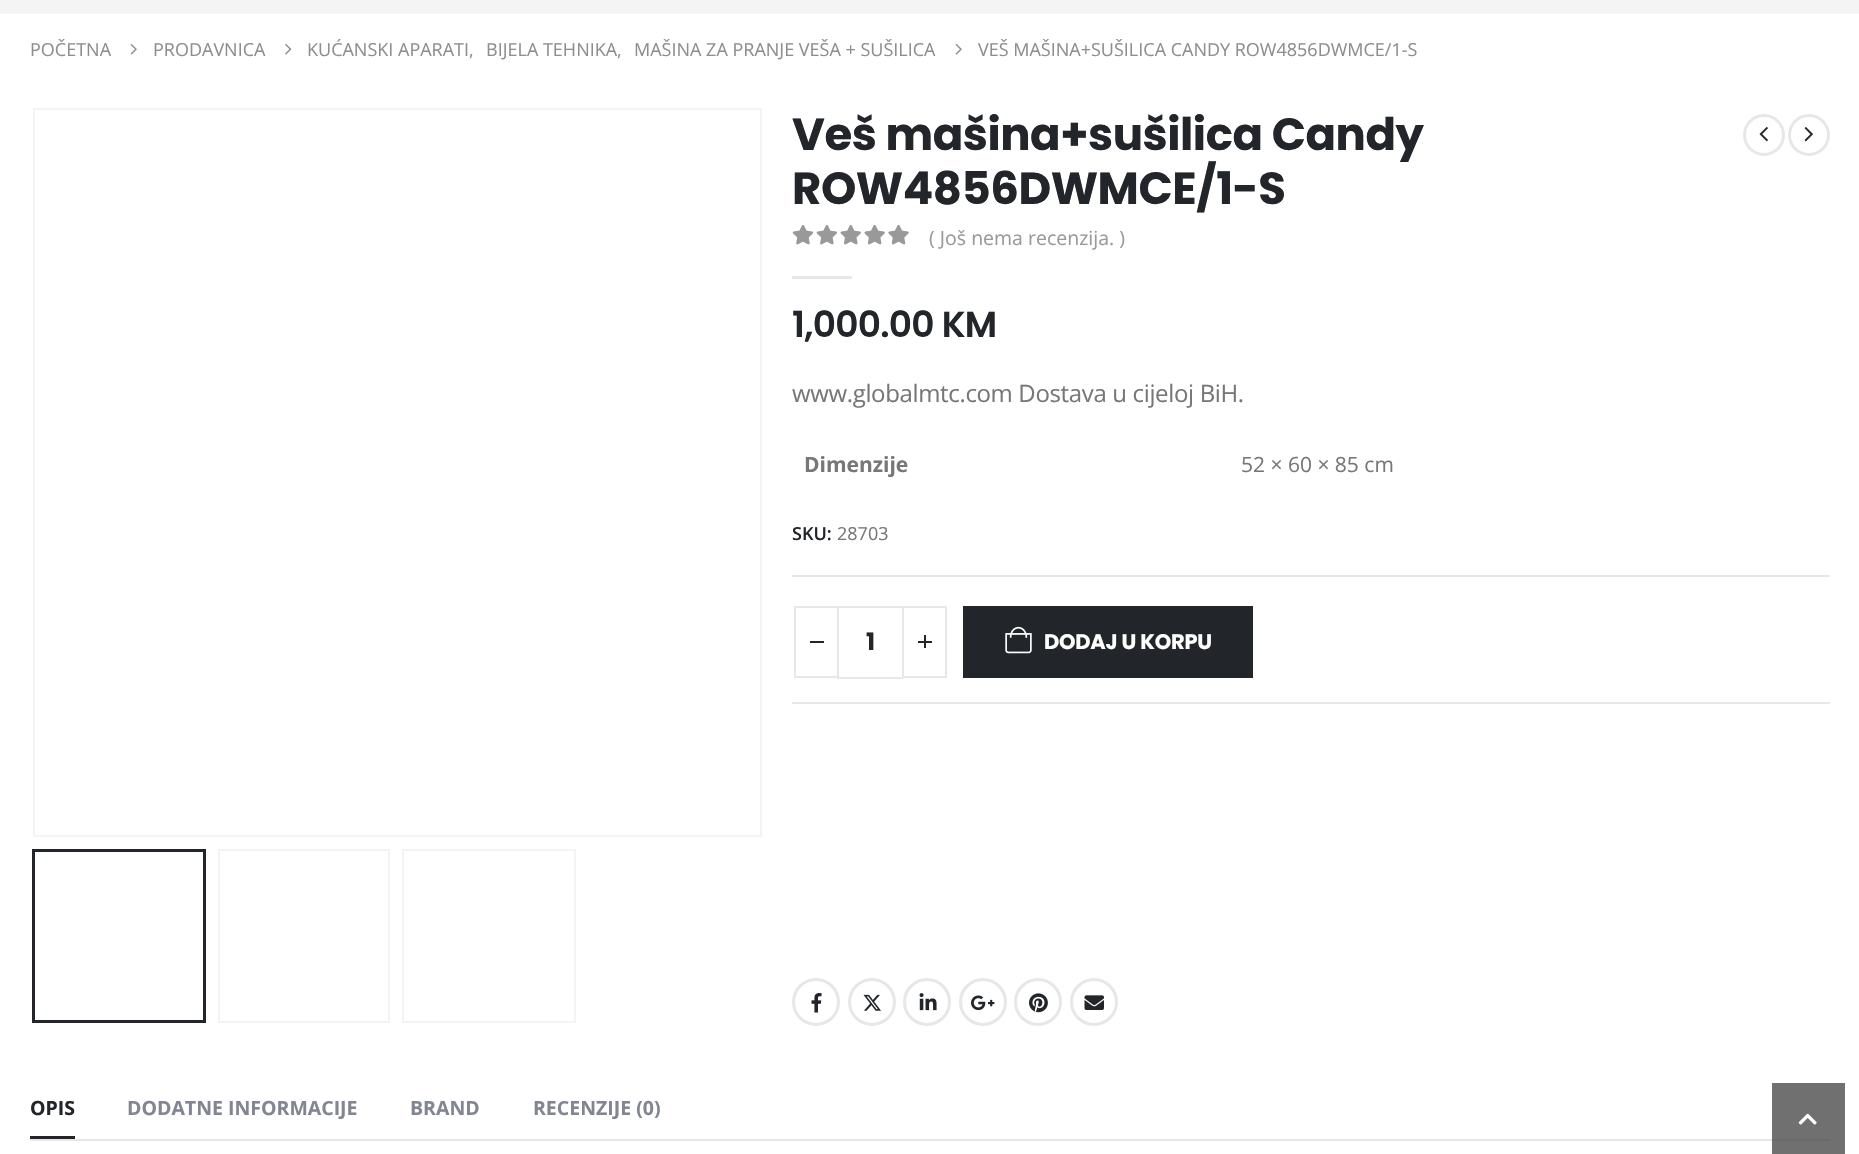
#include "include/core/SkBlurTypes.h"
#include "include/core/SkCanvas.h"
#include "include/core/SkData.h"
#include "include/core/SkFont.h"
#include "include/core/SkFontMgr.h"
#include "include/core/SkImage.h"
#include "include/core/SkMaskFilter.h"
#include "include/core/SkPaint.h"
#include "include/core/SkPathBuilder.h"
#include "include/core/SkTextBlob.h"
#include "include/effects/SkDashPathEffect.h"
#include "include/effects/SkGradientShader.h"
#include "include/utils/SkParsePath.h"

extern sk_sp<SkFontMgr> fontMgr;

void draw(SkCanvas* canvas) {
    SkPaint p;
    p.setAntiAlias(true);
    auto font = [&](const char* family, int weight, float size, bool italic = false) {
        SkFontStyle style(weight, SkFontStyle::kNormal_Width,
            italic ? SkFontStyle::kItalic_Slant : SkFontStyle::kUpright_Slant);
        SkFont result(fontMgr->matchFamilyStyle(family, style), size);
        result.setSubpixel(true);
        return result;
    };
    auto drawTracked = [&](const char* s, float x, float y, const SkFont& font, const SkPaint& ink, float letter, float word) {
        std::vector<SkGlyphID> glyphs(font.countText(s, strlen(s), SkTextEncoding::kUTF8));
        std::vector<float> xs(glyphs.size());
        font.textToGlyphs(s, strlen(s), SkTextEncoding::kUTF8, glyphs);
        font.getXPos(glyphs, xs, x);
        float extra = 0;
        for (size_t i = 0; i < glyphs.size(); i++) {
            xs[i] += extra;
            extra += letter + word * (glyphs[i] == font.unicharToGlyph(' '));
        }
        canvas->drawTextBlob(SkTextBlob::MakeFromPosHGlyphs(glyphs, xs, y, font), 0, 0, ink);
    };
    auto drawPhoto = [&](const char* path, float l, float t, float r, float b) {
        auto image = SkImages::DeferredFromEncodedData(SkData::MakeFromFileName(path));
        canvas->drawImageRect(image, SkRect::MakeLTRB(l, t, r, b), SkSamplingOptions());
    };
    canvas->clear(0xFFFFFFFF);
    p.setColor(0xFF707070);
    canvas->drawRect(SkRect::MakeLTRB(1772, 1083, 1845, 1154), p);
    p.setColor(0xFFF4F4F4);
    canvas->drawRect(SkRect::MakeLTRB(0, 0, 1859, 14), p);
    auto font1 = font("Open Sans", 400, 18);
    p.setColor(0xFF8E8E8E);
    canvas->drawString("POČETNA", 30, 56, font1, p);
    drawPhoto("media/1.png", 130, 43, 137, 55);
    canvas->drawString("PRODAVNICA", 153, 56, font1, p);
    drawPhoto("media/2.png", 285, 44, 292, 55);
    {
        const struct { const char* s; float x, y; } items[] = {
            {"KUĆANSKI APARATI,", 307, 56},
            {"BIJELA TEHNIKA,", 486, 56},
            {"MAŠINA ZA PRANJE VEŠA + SUŠILICA", 634, 56},
        };
        for (auto [s, x, y] : items) {
            canvas->drawString(s, x, y, font1, p);
        }
    }
    drawPhoto("media/1.png", 955, 43, 962, 55);
    canvas->drawString("VEŠ MAŠINA+SUŠILICA CANDY ROW4856DWMCE/1-S", 978, 56, font1, p);
    p.setStyle(SkPaint::kStroke_Style);
    p.setStrokeWidth(2);
    p.setColor(0xFFF4F4F4);
    canvas->drawRect(SkRect::MakeLTRB(34, 109, 761, 836), p);
    p.setStrokeWidth(3);
    p.setColor(0xFF222529);
    canvas->drawRect(SkRect::MakeLTRB(33.5f, 850.5f, 204.5f, 1021.5f), p);
    p.setStrokeWidth(2);
    p.setColor(0xFFF4F4F4);
    canvas->drawRect(SkRect::MakeLTRB(219, 850, 389, 1022), p);
    canvas->drawRect(SkRect::MakeLTRB(403, 850, 575, 1022), p);
    auto font2 = font("Poppins", 700, 45);
    p.setStyle(SkPaint::kFill_Style);
    p.setColor(0xFF222529);
    drawTracked("Veš mašina+sušilica Candy", 792, 150, font2, p, -0.45f, 0);
    drawTracked("ROW4856DWMCE/1-S", 792, 204, font2, p, -0.45f, 0);
    p.setStyle(SkPaint::kStroke_Style);
    p.setStrokeWidth(3);
    p.setColor(0xFFE7E7E7);
    canvas->drawCircle(1764, 135, 19.5f, p);
    drawPhoto("media/3.png", 1759, 127, 1768, 142);
    canvas->drawCircle(1809, 135, 19.5f, p);
    drawPhoto("media/4.png", 1804, 127, 1813, 142);
    drawPhoto("media/5.png", 792, 225, 909, 245);
    auto font3 = font("Open Sans", 400, 19.5f);
    p.setStyle(SkPaint::kFill_Style);
    p.setColor(0xFF999999);
    canvas->drawString("( Još nema recenzija. )", 929, 245, font3, p);
    p.setColor(0xFFE7E7E7);
    canvas->drawRect(SkRect::MakeLTRB(792, 276, 852, 279), p);
    auto font4 = font("Poppins", 600, 36);
    p.setColor(0xFF222529);
    drawTracked("1,000.00 KM", 792, 337, font4, p, -0.75f, 0);
    auto font5 = font("Open Sans", 400, 24);
    p.setColor(0xFF777777);
    drawTracked("www.globalmtc.com Dostava u cijeloj BiH.", 792, 402, font5, p, -0.35f, 0);
    auto font6 = font("Open Sans", 700, 21);
    canvas->drawString("Dimenzije", 804, 472, font6, p);
    auto font7 = font("Open Sans", 400, 21);
    canvas->drawString("52 × 60 × 85 cm", 1241, 472, font7, p);
    auto font8 = font("Open Sans", 600, 18);
    p.setColor(0xFF222529);
    canvas->drawString("SKU:", 792, 540, font8, p);
    p.setColor(0xFF777777);
    canvas->drawString("28703", 837, 540, font1, p);
    {
        const struct { float l, t, r, b; SkColor color; } items[] = {
            {792, 575, 1830, 577, 0xFFE7E7E7},
            {792, 702, 1830, 704, 0xFFE7E7E7},
            {837, 606, 903, 608, 0xFFE7E7E7},
            {837, 677, 903, 679, 0xFFE7E7E7},
        };
        for (auto [l, t, r, b, color] : items) {
            p.setColor(color);
            canvas->drawRect(SkRect::MakeLTRB(l, t, r, b), p);
        }
    }
    p.setStyle(SkPaint::kStroke_Style);
    p.setStrokeWidth(2);
    canvas->drawRect(SkRect::MakeLTRB(795, 607, 838, 677), p);
    p.setStyle(SkPaint::kFill_Style);
    p.setColor(0xFF222529);
    canvas->drawRect(SkRect::MakeLTRB(810, 641, 824, 643), p);
    auto font9 = font("Poppins", 700, 24);
    canvas->drawString("1", 866, 650, font9, p);
    p.setStyle(SkPaint::kStroke_Style);
    p.setColor(0xFFE7E7E7);
    canvas->drawRect(SkRect::MakeLTRB(903, 607, 946, 677), p);
    p.setStyle(SkPaint::kFill_Style);
    {
        const struct { float l, t, r, b; SkColor color; } items[] = {
            {918, 641, 932, 643, 0xFF222529},
            {924, 635, 926, 648, 0xFF222529},
            {963, 606, 1253, 678, 0xFF222529},
        };
        for (auto [l, t, r, b, color] : items) {
            p.setColor(color);
            canvas->drawRect(SkRect::MakeLTRB(l, t, r, b), p);
        }
    }
    drawPhoto("media/6.png", 1005, 626, 1032, 654);
    auto font10 = font("Poppins", 700, 21);
    p.setColor(0xFFFFFFFF);
    drawTracked("DODAJ U KORPU", 1044, 649, font10, p, -0.25f, 0);
    p.setStyle(SkPaint::kStroke_Style);
    p.setStrokeWidth(3);
    p.setColor(0xFFE7E7E7);
    canvas->drawCircle(816, 1002, 22.5f, p);
    drawPhoto("media/7.png", 811, 993, 822, 1013);
    canvas->drawCircle(872, 1002, 22.5f, p);
    drawPhoto("media/8.png", 863, 994, 881, 1011);
    canvas->drawCircle(927, 1002, 22.5f, p);
    drawPhoto("media/9.png", 919, 993, 937, 1011);
    canvas->drawCircle(983, 1002, 22.5f, p);
    drawPhoto("media/10.png", 971, 995, 995, 1011);
    canvas->drawCircle(1038, 1002, 22.5f, p);
    drawPhoto("media/11.png", 1029, 993, 1048, 1013);
    canvas->drawCircle(1094, 1002, 22.5f, p);
    drawPhoto("media/12.png", 1084, 995, 1104, 1010);
    p.setStyle(SkPaint::kFill_Style);
    p.setColor(0xFF222529);
    canvas->drawRect(SkRect::MakeLTRB(30, 1136, 75, 1139), p);
    auto font11 = font("Open Sans", 700, 19.5f);
    canvas->drawString("OPIS", 30, 1115, font11, p);
    p.setColor(0xFF818692);
    {
        const struct { const char* s; float x, y; } items[] = {
            {"DODATNE INFORMACIJE", 127, 1115},
            {"BRAND", 410, 1115},
            {"RECENZIJE (0)", 533, 1115},
        };
        for (auto [s, x, y] : items) {
            canvas->drawString(s, x, y, font11, p);
        }
    }
    p.setColor(0xFFE7E7E7);
    canvas->drawRect(SkRect::MakeLTRB(30, 1139, 1772, 1141), p);
    p.setColor(0xFF6A6A6A);
    canvas->drawRect(SkRect::MakeLTRB(1772, 1139, 1830, 1141), p);
    drawPhoto("media/13.png", 1798, 1113, 1817, 1125);
}
